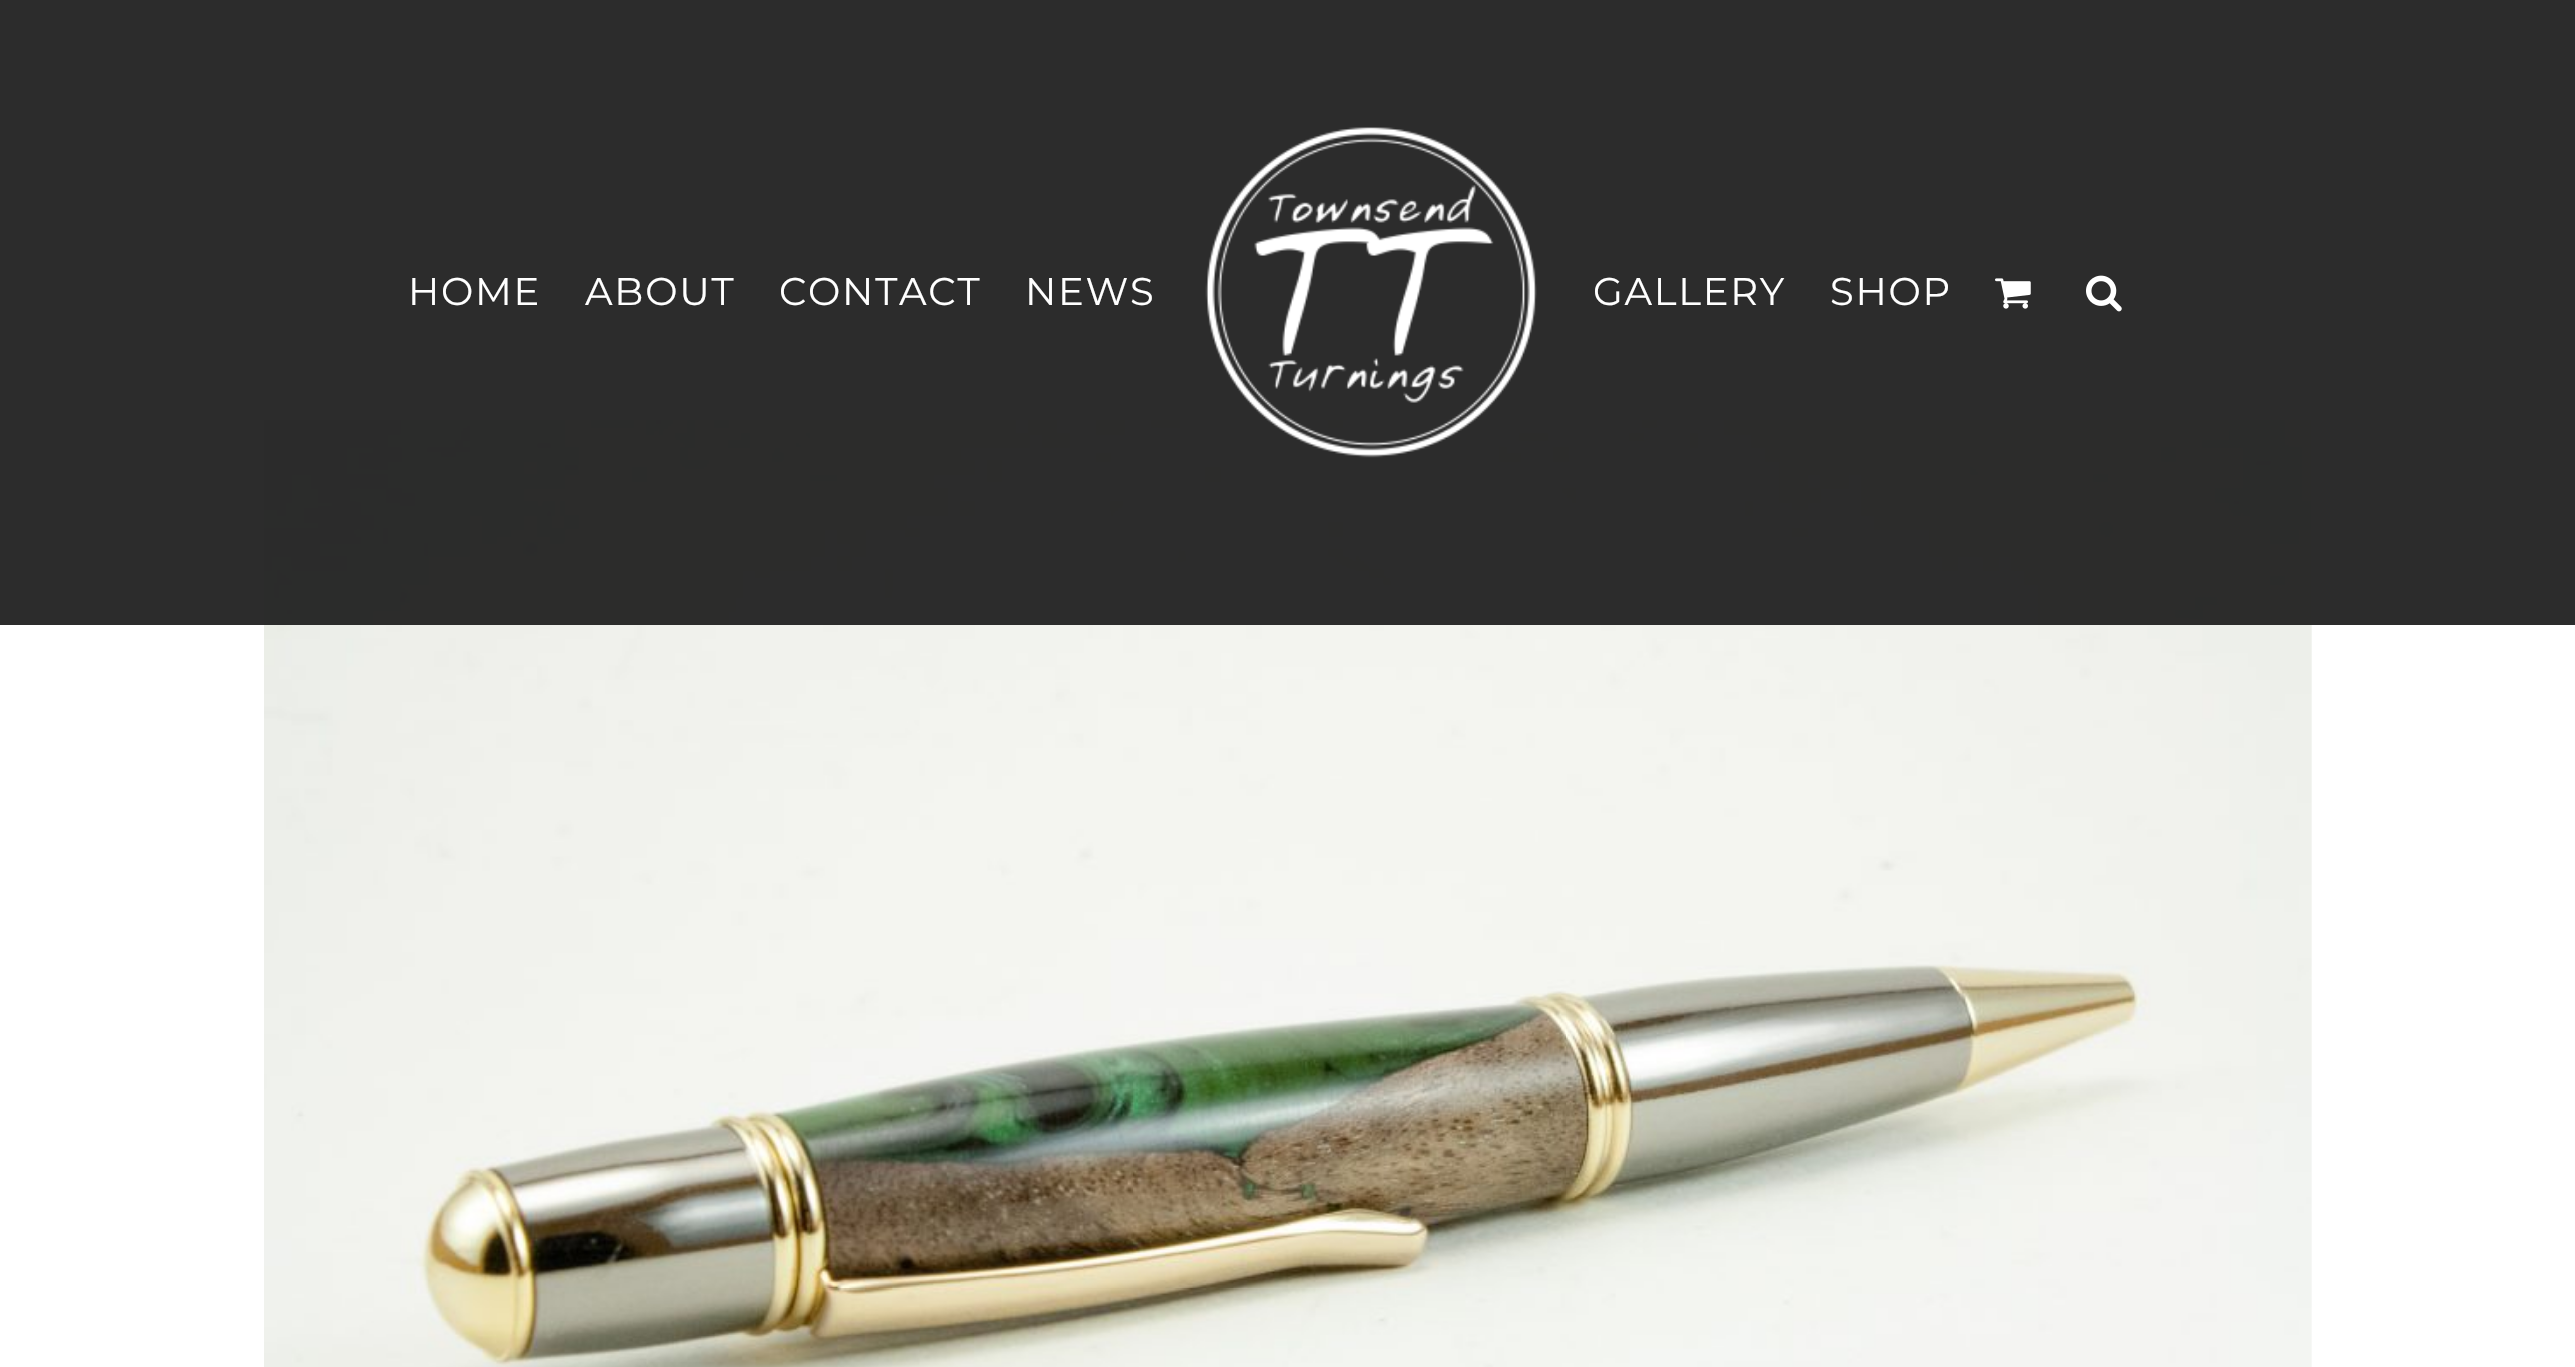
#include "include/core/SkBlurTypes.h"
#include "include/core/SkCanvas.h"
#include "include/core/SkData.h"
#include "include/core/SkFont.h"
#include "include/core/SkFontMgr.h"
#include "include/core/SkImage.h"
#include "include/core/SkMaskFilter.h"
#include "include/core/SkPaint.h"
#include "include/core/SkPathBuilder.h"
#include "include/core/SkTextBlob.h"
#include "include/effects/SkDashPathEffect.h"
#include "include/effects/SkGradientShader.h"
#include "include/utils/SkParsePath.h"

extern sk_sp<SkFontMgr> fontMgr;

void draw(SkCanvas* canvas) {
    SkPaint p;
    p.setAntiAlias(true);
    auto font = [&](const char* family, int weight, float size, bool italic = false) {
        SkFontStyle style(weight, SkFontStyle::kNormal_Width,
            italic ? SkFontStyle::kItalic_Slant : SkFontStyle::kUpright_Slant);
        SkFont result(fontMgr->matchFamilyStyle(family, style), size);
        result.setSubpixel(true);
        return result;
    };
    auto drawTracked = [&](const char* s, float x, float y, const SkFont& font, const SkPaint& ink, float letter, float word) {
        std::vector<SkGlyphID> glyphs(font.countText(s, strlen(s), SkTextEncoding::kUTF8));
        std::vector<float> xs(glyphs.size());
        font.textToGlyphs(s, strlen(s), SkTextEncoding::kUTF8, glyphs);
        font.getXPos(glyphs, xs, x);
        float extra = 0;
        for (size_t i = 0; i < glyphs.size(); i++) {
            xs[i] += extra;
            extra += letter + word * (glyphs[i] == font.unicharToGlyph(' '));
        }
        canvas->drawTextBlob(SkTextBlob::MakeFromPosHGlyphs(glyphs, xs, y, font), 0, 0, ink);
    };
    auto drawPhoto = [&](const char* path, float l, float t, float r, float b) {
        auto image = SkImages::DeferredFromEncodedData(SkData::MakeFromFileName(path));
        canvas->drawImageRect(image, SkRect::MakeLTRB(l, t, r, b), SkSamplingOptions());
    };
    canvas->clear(0xFFFFFFFF);
    drawPhoto("media/4.png", 264, 420, 2312, 1367);
    p.setColor(0xF2212121);
    canvas->drawRect(SkRect::MakeLTRB(0, 0, 2575, 625), p);
    auto font1 = font("Montserrat", 100, 38.5f);
    p.setColor(0xFFFFFFFF);
    {
        const struct { const char* s; float x, y; } items[] = {
            {"HOME", 408, 305},
            {"ABOUT", 585, 305},
            {"CONTACT", 779, 305},
            {"NEWS", 1025, 305},
        };
        for (auto [s, x, y] : items) {
            drawTracked(s, x, y, font1, p, 1.75f, 0);
        }
    }
    drawPhoto("media/1.png", 1205, 127, 1537, 458);
    drawTracked("GALLERY", 1593, 305, font1, p, 1.75f, 0);
    drawTracked("SHOP", 1830, 305, font1, p, 1.75f, 0);
    drawPhoto("media/2.png", 1995, 278, 2031, 309);
    drawPhoto("media/3.png", 2086, 275, 2122, 312);
}
